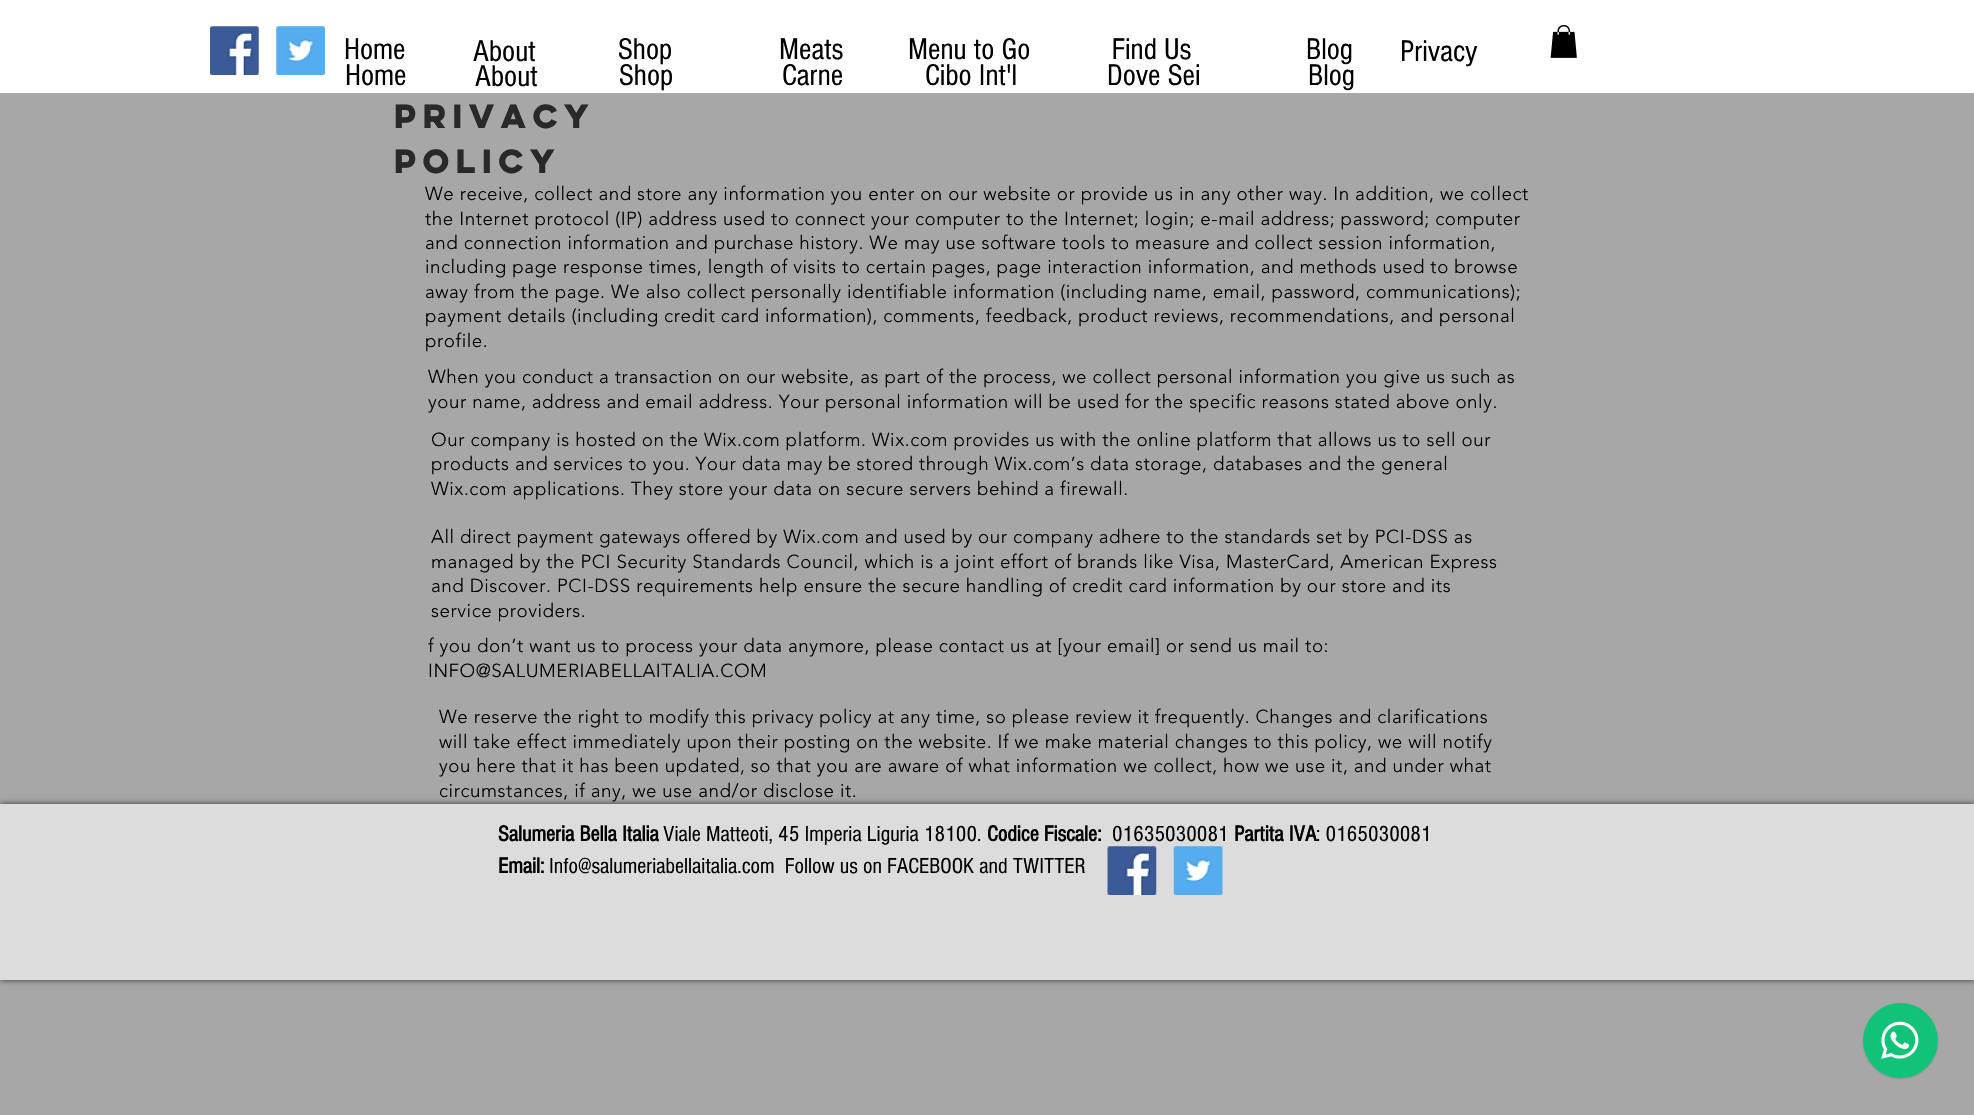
#include "include/core/SkBlurTypes.h"
#include "include/core/SkCanvas.h"
#include "include/core/SkData.h"
#include "include/core/SkFont.h"
#include "include/core/SkFontMgr.h"
#include "include/core/SkImage.h"
#include "include/core/SkMaskFilter.h"
#include "include/core/SkPaint.h"
#include "include/core/SkPathBuilder.h"
#include "include/core/SkTextBlob.h"
#include "include/effects/SkDashPathEffect.h"
#include "include/effects/SkGradientShader.h"
#include "include/utils/SkParsePath.h"

extern sk_sp<SkFontMgr> fontMgr;

void draw(SkCanvas* canvas) {
    SkPaint p;
    p.setAntiAlias(true);
    auto font = [&](const char* family, int weight, float size, bool italic = false) {
        SkFontStyle style(weight, SkFontStyle::kNormal_Width,
            italic ? SkFontStyle::kItalic_Slant : SkFontStyle::kUpright_Slant);
        SkFont result(fontMgr->matchFamilyStyle(family, style), size);
        result.setSubpixel(true);
        return result;
    };
    auto drawTracked = [&](const char* s, float x, float y, const SkFont& font, const SkPaint& ink, float letter, float word) {
        std::vector<SkGlyphID> glyphs(font.countText(s, strlen(s), SkTextEncoding::kUTF8));
        std::vector<float> xs(glyphs.size());
        font.textToGlyphs(s, strlen(s), SkTextEncoding::kUTF8, glyphs);
        font.getXPos(glyphs, xs, x);
        float extra = 0;
        for (size_t i = 0; i < glyphs.size(); i++) {
            xs[i] += extra;
            extra += letter + word * (glyphs[i] == font.unicharToGlyph(' '));
        }
        canvas->drawTextBlob(SkTextBlob::MakeFromPosHGlyphs(glyphs, xs, y, font), 0, 0, ink);
    };
    auto drawPhoto = [&](const char* path, float l, float t, float r, float b) {
        auto image = SkImages::DeferredFromEncodedData(SkData::MakeFromFileName(path));
        canvas->drawImageRect(image, SkRect::MakeLTRB(l, t, r, b), SkSamplingOptions());
    };
    canvas->clear(0xFFA7A7A7);
    p.setColor(0xFFFFFFFF);
    canvas->drawRect(SkRect::MakeLTRB(0, 0, 1974, 93), p);
    drawPhoto("media/1.png", 210, 26, 259, 75);
    drawPhoto("media/2.png", 276, 26, 325, 75);
    auto font1 = font("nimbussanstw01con", 400, 31);
    p.setColor(0xFF000000);
    {
        const struct { const char* s; float x, y; } items[] = {
            {"Home", 344, 59},
            {"About", 473, 61},
            {"Shop", 618, 59},
            {"Meats", 779, 59},
            {"Menu to Go", 908, 59},
            {"Find Us", 1112, 59},
            {"Blog", 1306, 59},
            {"Privacy", 1400, 61},
        };
        for (auto [s, x, y] : items) {
            canvas->drawString(s, x, y, font1, p);
        }
    }
    drawPhoto("media/3.png", 1550, 25, 1577, 58);
    {
        const struct { const char* s; float x, y; } items[] = {
            {"Home", 345, 85},
            {"About", 475, 86},
            {"Shop", 619, 85},
            {"Carne", 782, 85},
            {"Cibo Int'l", 925, 85},
            {"Dove Sei", 1107, 85},
            {"Blog", 1308, 85},
        };
        for (auto [s, x, y] : items) {
            canvas->drawString(s, x, y, font1, p);
        }
    }
    auto font2 = font("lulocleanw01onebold", 700, 30);
    p.setColor(0xFF292929);
    canvas->drawString("PRIVACY", 394, 128, font2, p);
    canvas->drawString("POLICY", 394, 173, font2, p);
    auto font3 = font("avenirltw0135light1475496", 300, 18.75f);
    p.setColor(0xFF000000);
    {
        const struct { const char* s; float x, y; } items[] = {
            {"We receive, collect and store any information you enter on our website or provide us in any other way. In addition, we collect", 425, 200},
            {"the Internet protocol (IP) address used to connect your computer to the Internet; login; e-mail address; password; computer", 425, 225},
            {"and connection information and purchase history. We may use software tools to measure and collect session information,", 425, 249},
            {"including page response times, length of visits to certain pages, page interaction information, and methods used to browse", 425, 273},
            {"away from the page. We also collect personally identifiable information (including name, email, password, communications);", 425, 298},
            {"payment details (including credit card information), comments, feedback, product reviews, recommendations, and personal", 425, 322},
            {"profile.", 425, 347},
            {"When you conduct a transaction on our website, as part of the process, we collect personal information you give us such as", 428, 383},
            {"your name, address and email address. Your personal information will be used for the specific reasons stated above only.", 428, 408},
            {"Our company is hosted on the Wix.com platform. Wix.com provides us with the online platform that allows us to sell our", 431, 446},
            {"products and services to you. Your data may be stored through Wix.com’s data storage, databases and the general", 431, 470},
            {"Wix.com applications. They store your data on secure servers behind a firewall.", 431, 495},
            {"All direct payment gateways offered by Wix.com and used by our company adhere to the standards set by PCI-DSS as", 431, 543},
            {"managed by the PCI Security Standards Council, which is a joint effort of brands like Visa, MasterCard, American Express", 431, 568},
            {"and Discover. PCI-DSS requirements help ensure the secure handling of credit card information by our store and its", 431, 592},
            {"service providers.", 431, 617},
            {"f you don’t want us to process your data anymore, please contact us at [your email] or send us mail to:", 428, 652},
            {"INFO@SALUMERIABELLAITALIA.COM", 428, 677},
            {"We reserve the right to modify this privacy policy at any time, so please review it frequently. Changes and clarifications", 439, 723},
            {"will take effect immediately upon their posting on the website. If we make material changes to this policy, we will notify", 439, 748},
            {"you here that it has been updated, so that you are aware of what information we collect, how we use it, and under what", 439, 772},
            {"circumstances, if any, we use and/or disclose it.", 439, 797},
        };
        for (auto [s, x, y] : items) {
            drawTracked(s, x, y, font3, p, 0.56f, 0);
        }
    }
    p.setColor(0xB3000000);
    p.setMaskFilter(SkMaskFilter::MakeBlur(kNormal_SkBlurStyle, 3));
    canvas->drawRect(SkRect::MakeLTRB(0, 804, 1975, 980), p);
    p.setMaskFilter(nullptr);
    p.setColor(0xFFDCDCDC);
    canvas->drawRect(SkRect::MakeLTRB(0, 804, 1974, 980), p);
    auto font4 = font("nimbussanstw01con", 700, 22.5f);
    p.setColor(0xFF000000);
    canvas->drawString("Salumeria Bella Italia", 498, 841, font4, p);
    auto font5 = font("nimbussanstw01con", 400, 22.5f);
    canvas->drawString("Viale Matteoti, 45 Imperia Liguria 18100.", 663, 841, font5, p);
    canvas->drawString("Codice Fiscale:", 987, 841, font4, p);
    canvas->drawString("01635030081", 1112, 841, font5, p);
    canvas->drawString("Partita IVA", 1234, 841, font4, p);
    canvas->drawString(": 0165030081", 1316, 841, font5, p);
    canvas->drawString("Email:", 498, 873, font4, p);
    canvas->drawString("Info@salumeriabellaitalia.com", 549, 873, font5, p);
    canvas->drawString("Follow us on FACEBOOK and TWITTER", 785, 873, font5, p);
    drawPhoto("media/4.png", 1107, 846, 1157, 895);
    drawPhoto("media/5.png", 1173, 846, 1223, 895);
    p.setColor(0x26000000);
    p.setMaskFilter(SkMaskFilter::MakeBlur(kNormal_SkBlurStyle, 1));
    canvas->drawRoundRect(SkRect::MakeLTRB(1863, 1004, 1938, 1079), 37.5f, 37.5f, p);
    p.setMaskFilter(nullptr);
    p.setColor(0xFF10C379);
    canvas->drawCircle(1900.5f, 1040.5f, 37.5f, p);
    drawPhoto("media/6.png", 1881, 1021, 1919, 1059);
}
